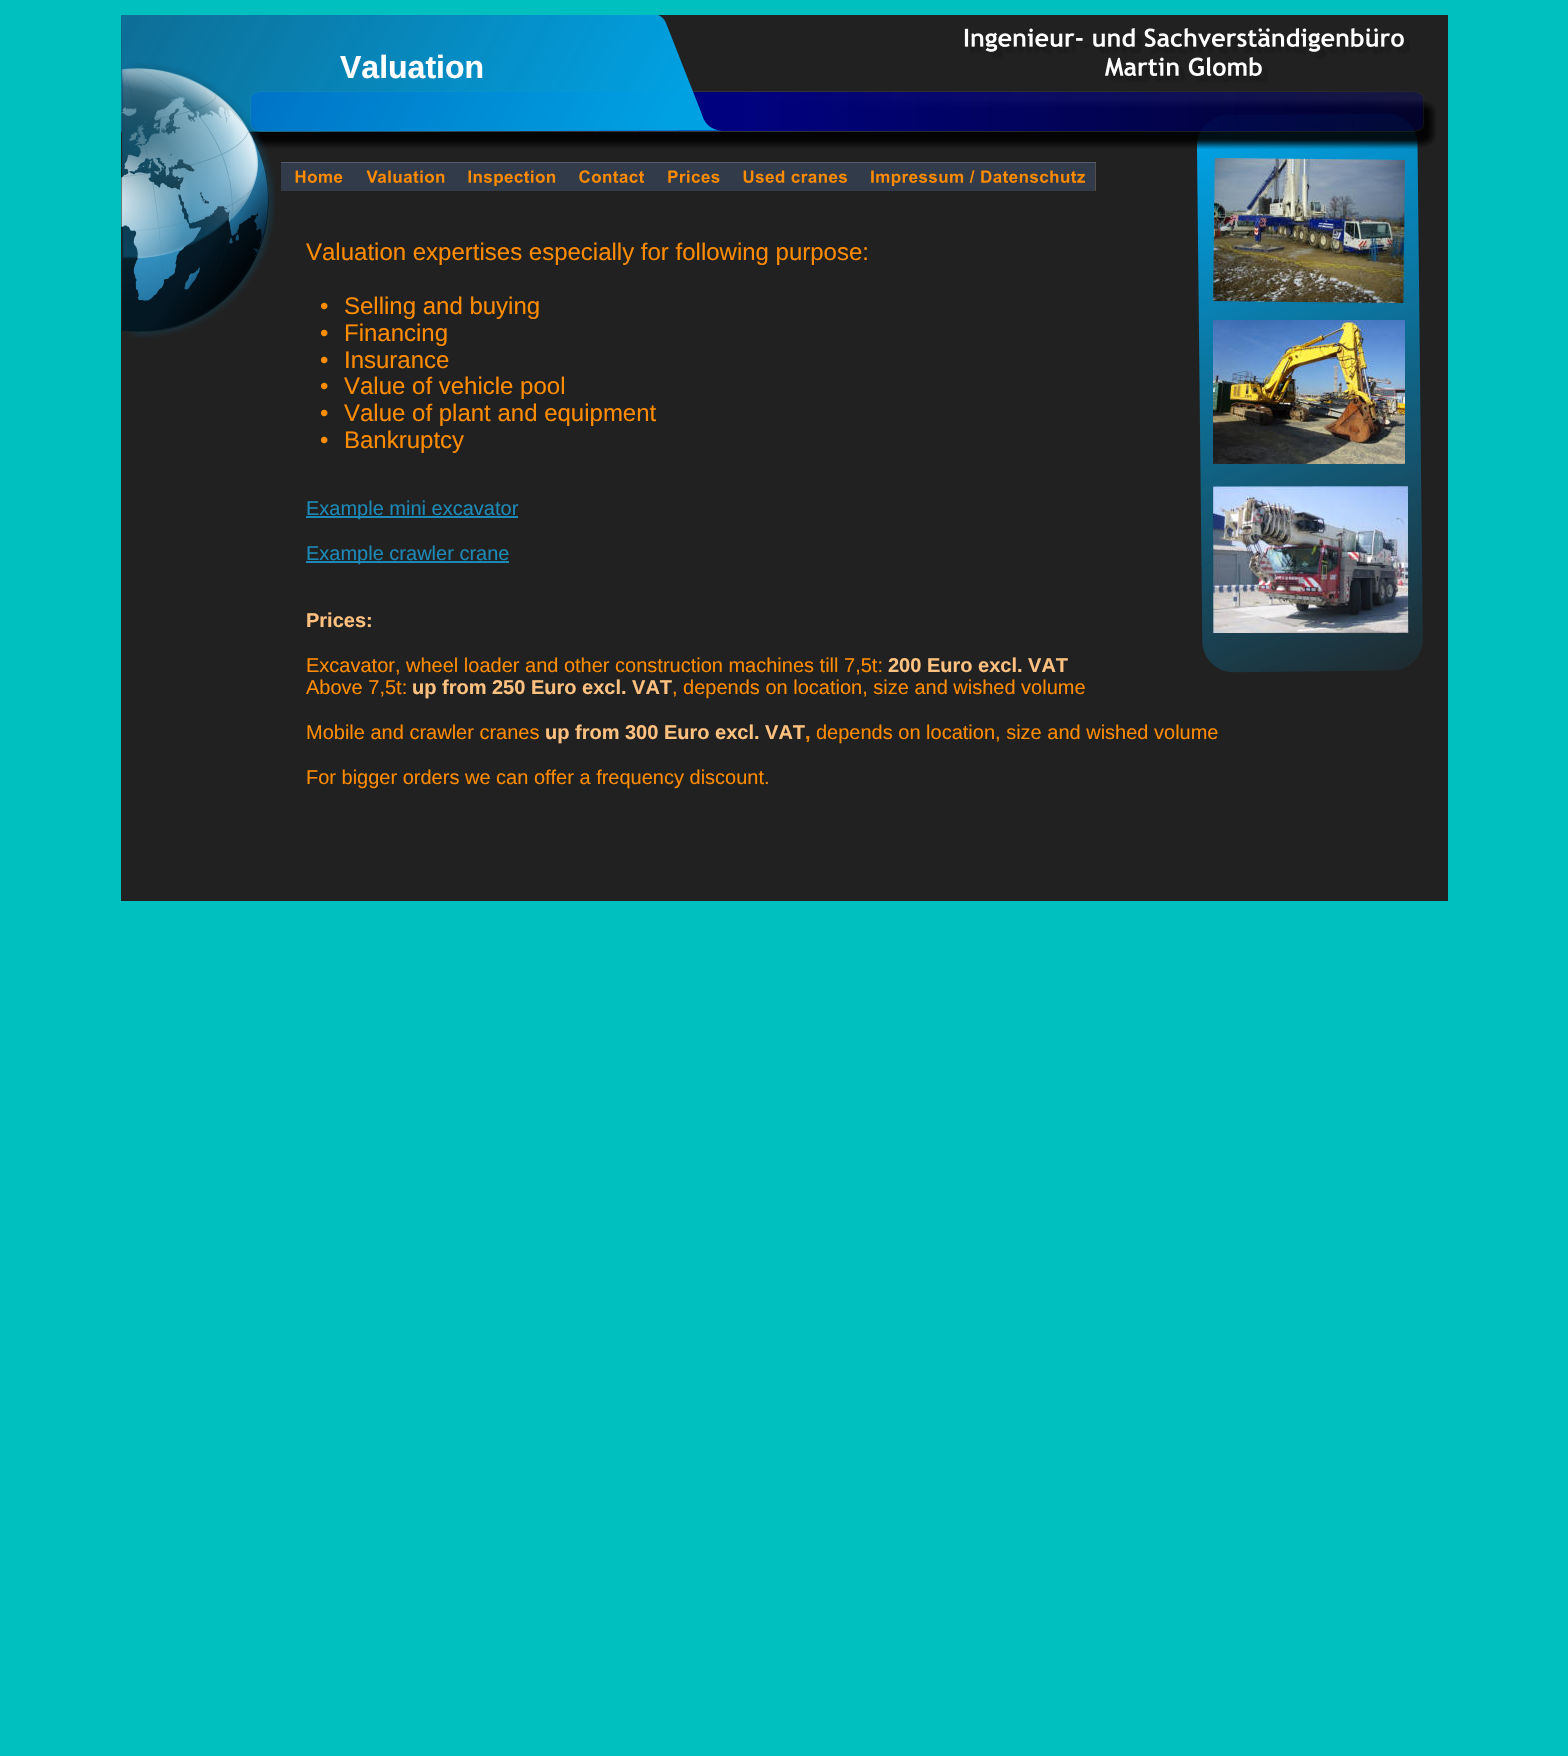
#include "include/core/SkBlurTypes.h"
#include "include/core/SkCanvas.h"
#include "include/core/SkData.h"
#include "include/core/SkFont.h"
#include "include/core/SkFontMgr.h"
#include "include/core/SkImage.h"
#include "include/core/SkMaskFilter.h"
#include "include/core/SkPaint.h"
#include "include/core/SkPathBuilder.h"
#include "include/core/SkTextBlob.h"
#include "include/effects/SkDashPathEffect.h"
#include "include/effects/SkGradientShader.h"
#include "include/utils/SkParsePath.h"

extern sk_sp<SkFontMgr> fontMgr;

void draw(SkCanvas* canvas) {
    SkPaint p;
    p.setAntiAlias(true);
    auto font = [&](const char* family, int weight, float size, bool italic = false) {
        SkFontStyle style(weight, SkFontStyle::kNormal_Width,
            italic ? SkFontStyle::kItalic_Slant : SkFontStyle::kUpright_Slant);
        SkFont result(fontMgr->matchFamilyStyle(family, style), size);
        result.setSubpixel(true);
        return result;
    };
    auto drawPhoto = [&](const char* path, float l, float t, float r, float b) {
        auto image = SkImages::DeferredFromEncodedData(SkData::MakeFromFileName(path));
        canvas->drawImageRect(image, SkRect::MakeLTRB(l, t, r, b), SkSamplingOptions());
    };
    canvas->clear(0xFF00BFBF);
    p.setColor(0xFF212121);
    canvas->drawRect(SkRect::MakeLTRB(121, 15, 1448, 901), p);
    drawPhoto("media/6.png", 1197, 113, 1423, 673);
    drawPhoto("media/5.png", 248, 100, 1436, 149);
    drawPhoto("media/4.png", 250, 91, 1424, 132);
    drawPhoto("media/1.png", 121, 15, 722, 132);
    drawPhoto("media/2.png", 964, 28, 1410, 82);
    drawPhoto("media/3.png", 121, 63, 275, 338);
    auto font1 = font("Liberation Sans", 700, 32);
    p.setColor(0xFFFFFFFF);
    canvas->drawString("Valuation", 340, 78, font1, p);
    drawPhoto("media/7.png", 281, 162, 352, 191);
    drawPhoto("media/8.png", 352, 162, 454, 191);
    drawPhoto("media/9.png", 454, 162, 565, 191);
    drawPhoto("media/10.png", 565, 162, 654, 191);
    drawPhoto("media/11.png", 654, 162, 730, 191);
    drawPhoto("media/12.png", 730, 162, 857, 191);
    drawPhoto("media/15.png", 1095, 162, 1096, 191);
    drawPhoto("media/13.png", 857, 162, 1096, 191);
    drawPhoto("media/14.png", 1213, 158, 1405, 304);
    auto font2 = font("Liberation Sans", 400, 24);
    p.setColor(0xFFFF8B00);
    {
        const struct { const char* s; float x, y; } items[] = {
            {"Valuation expertises especially for following purpose:", 306, 260},
            {"•", 320, 314},
            {"Selling and buying", 344, 314},
            {"•", 320, 341},
            {"Financing", 344, 341},
            {"•", 320, 368},
            {"Insurance", 344, 368},
            {"•", 320, 394},
            {"Value of vehicle pool", 344, 394},
            {"•", 320, 421},
            {"Value of plant and equipment", 344, 421},
            {"•", 320, 448},
            {"Bankruptcy", 344, 448},
        };
        for (auto [s, x, y] : items) {
            canvas->drawString(s, x, y, font2, p);
        }
    }
    p.setColor(0xFF1C89B6);
    canvas->drawRect(SkRect::MakeLTRB(306, 516, 518, 518), p);
    auto font3 = font("Liberation Sans", 400, 20);
    canvas->drawString("Example mini excavator", 306, 515, font3, p);
    canvas->drawRect(SkRect::MakeLTRB(306, 561, 509, 563), p);
    canvas->drawString("Example crawler crane", 306, 560, font3, p);
    auto font4 = font("Liberation Sans", 700, 20);
    p.setColor(0xFFFFC17F);
    canvas->drawString("Prices:", 306, 627, font4, p);
    p.setColor(0xFFFF8B00);
    canvas->drawString("Excavator, wheel loader and other construction machines till 7,5t:", 306, 672, font3, p);
    p.setColor(0xFFFFC17F);
    canvas->drawString("200 Euro excl. VAT", 888, 672, font4, p);
    p.setColor(0xFFFF8B00);
    canvas->drawString("Above 7,5t:", 306, 694, font3, p);
    p.setColor(0xFFFFC17F);
    canvas->drawString("up from 250 Euro excl. VAT", 412, 694, font4, p);
    p.setColor(0xFFFF8B00);
    canvas->drawString(", depends on location, size and wished volume", 672, 694, font3, p);
    canvas->drawString("Mobile and crawler cranes", 306, 739, font3, p);
    p.setColor(0xFFFFC17F);
    canvas->drawString("up from 300 Euro excl. VAT", 545, 739, font4, p);
    p.setColor(0xFFFF8B00);
    canvas->drawString(",", 805, 739, font4, p);
    canvas->drawString("depends on location, size and wished volume", 816, 739, font3, p);
    canvas->drawString("For bigger orders we can offer a frequency discount.", 306, 784, font3, p);
    drawPhoto("media/16.png", 1213, 320, 1405, 464);
    drawPhoto("media/17.png", 1213, 486, 1409, 633);
}
